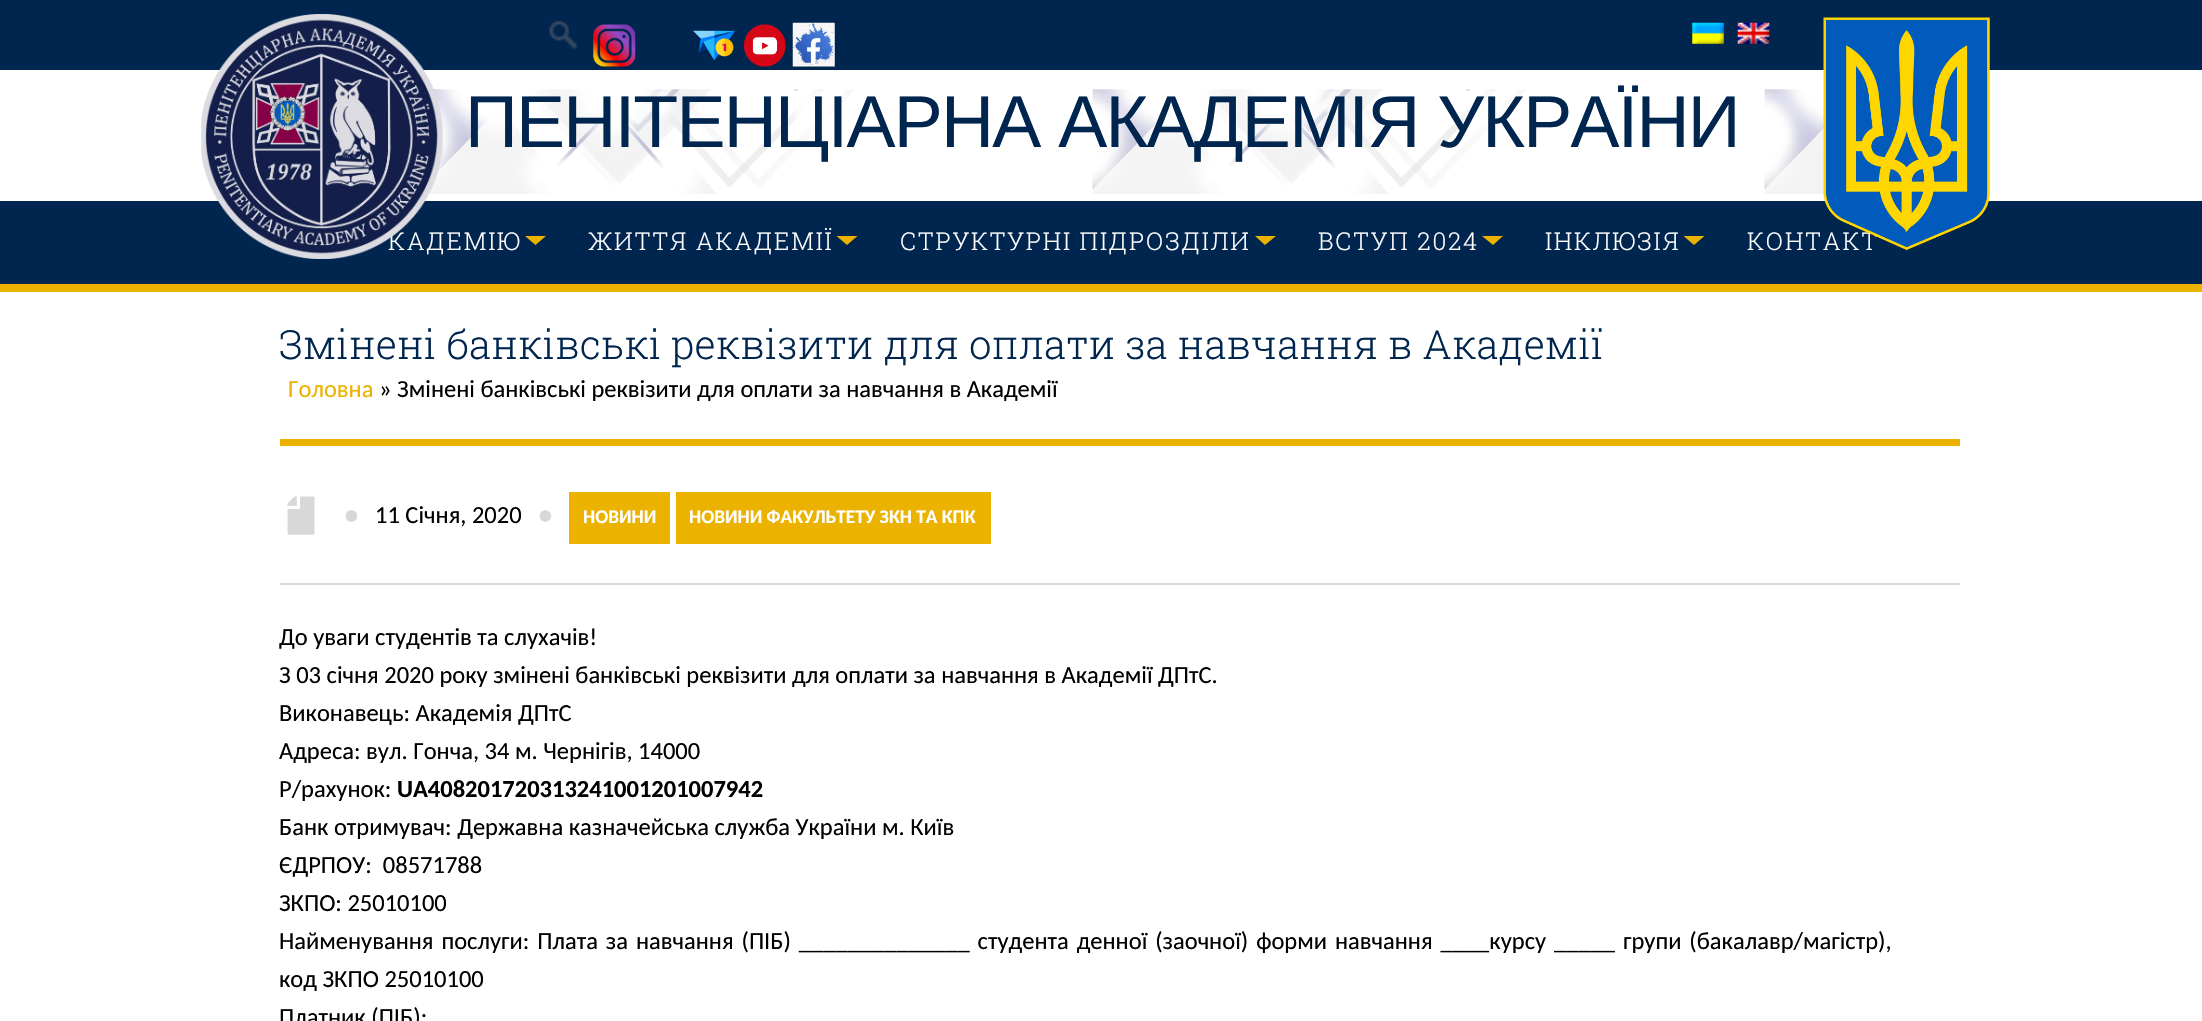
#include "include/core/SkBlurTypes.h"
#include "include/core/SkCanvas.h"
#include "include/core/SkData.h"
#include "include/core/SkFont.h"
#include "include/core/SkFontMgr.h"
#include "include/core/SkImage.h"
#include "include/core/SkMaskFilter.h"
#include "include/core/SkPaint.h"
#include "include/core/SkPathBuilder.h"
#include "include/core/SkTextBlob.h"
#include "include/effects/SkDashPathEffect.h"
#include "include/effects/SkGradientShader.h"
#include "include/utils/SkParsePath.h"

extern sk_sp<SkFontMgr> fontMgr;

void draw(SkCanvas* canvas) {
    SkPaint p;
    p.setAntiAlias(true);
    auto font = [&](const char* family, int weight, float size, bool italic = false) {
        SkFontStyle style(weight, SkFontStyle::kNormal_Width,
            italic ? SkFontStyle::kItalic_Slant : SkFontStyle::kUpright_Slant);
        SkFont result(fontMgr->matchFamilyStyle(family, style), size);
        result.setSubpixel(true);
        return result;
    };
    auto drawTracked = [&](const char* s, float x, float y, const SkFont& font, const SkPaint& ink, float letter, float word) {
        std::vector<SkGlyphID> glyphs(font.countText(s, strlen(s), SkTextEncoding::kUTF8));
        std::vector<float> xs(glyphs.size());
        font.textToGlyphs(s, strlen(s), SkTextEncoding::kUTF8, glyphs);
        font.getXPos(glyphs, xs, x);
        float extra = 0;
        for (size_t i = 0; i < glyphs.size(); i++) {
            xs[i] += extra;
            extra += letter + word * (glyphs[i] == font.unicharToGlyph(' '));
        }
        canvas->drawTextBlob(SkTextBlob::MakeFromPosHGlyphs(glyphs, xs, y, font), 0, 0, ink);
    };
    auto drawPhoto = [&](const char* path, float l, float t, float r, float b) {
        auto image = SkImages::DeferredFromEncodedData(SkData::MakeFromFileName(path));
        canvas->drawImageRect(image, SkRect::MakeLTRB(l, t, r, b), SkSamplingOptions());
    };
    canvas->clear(0xFFFFFFFF);
    p.setColor(0xFF00254E);
    canvas->drawRect(SkRect::MakeLTRB(0, 0, 2202, 70), p);
    drawPhoto("media/1.png", 549, 20, 578, 50);
    drawPhoto("media/2.png", 593, 24, 636, 67);
    drawPhoto("media/3.png", 693, 30, 735, 61);
    drawPhoto("media/4.png", 743, 24, 786, 67);
    drawPhoto("media/5.png", 792, 22, 835, 67);
    drawPhoto("media/6.png", 1692, 22, 1724, 44);
    drawPhoto("media/7.png", 1737, 22, 1770, 44);
    drawPhoto("media/8.png", 428, 89, 1824, 194);
    canvas->drawRect(SkRect::MakeLTRB(0, 201, 2202, 284), p);
    auto font1 = font("Roboto Slab", 300, 24.5f);
    p.setColor(0xFFFFFFFF);
    drawTracked("КАДЕМІЮ", 388, 250, font1, p, 1.75f, 0);
    drawPhoto("media/9.png", 201, 14, 443, 259);
    auto font2 = font("Liberation Sans", 400, 73.5f);
    p.setColor(0xFF00254E);
    drawTracked("ПЕНІТЕНЦІАРНА АКАДЕМІЯ УКРАЇНИ", 465, 147, font2, p, -1.75f, 0);
    p.setColor(0xFFECB200);
    canvas->drawRect(SkRect::MakeLTRB(0, 284, 2202, 292), p);
    canvas->drawPath(SkPathBuilder().moveTo(525, 236).lineTo(546, 236).lineTo(535.5f, 245).close().detach(), p);
    p.setColor(0xFFFFFFFF);
    drawTracked("ЖИТТЯ АКАДЕМІЇ", 588, 250, font1, p, 1.75f, 0);
    p.setColor(0xFFECB200);
    canvas->drawPath(SkPathBuilder().moveTo(836.5f, 236).lineTo(857.5f, 236).lineTo(847, 245).close().detach(), p);
    p.setColor(0xFFFFFFFF);
    drawTracked("СТРУКТУРНІ ПІДРОЗДІЛИ", 900, 250, font1, p, 1.75f, 0);
    p.setColor(0xFFECB200);
    canvas->drawPath(SkPathBuilder().moveTo(1255, 236).lineTo(1276, 236).lineTo(1265, 245).close().detach(), p);
    p.setColor(0xFFFFFFFF);
    drawTracked("ВСТУП 2024", 1318, 250, font1, p, 1.75f, 0);
    p.setColor(0xFFECB200);
    canvas->drawPath(SkPathBuilder().moveTo(1482, 236).lineTo(1503, 236).lineTo(1493, 245).close().detach(), p);
    p.setColor(0xFFFFFFFF);
    drawTracked("ІНКЛЮЗІЯ", 1545, 250, font1, p, 1.75f, 0);
    p.setColor(0xFFECB200);
    canvas->drawPath(SkPathBuilder().moveTo(1683.5f, 236).lineTo(1704.5f, 236).lineTo(1694, 245).close().detach(), p);
    p.setColor(0xFFFFFFFF);
    drawTracked("КОНТАКТ", 1747, 250, font1, p, 1.75f, 0);
    drawPhoto("media/10.png", 1823, 17, 1990, 251);
    auto font3 = font("Roboto Slab", 300, 40.25f);
    p.setColor(0xFF00254E);
    canvas->drawString("Змінені банківські реквізити для оплати за навчання в Академії", 279, 359, font3, p);
    auto font4 = font("Carlito", 400, 24.5f);
    p.setColor(0xFFECB200);
    canvas->drawString("Головна", 288, 397, font4, p);
    p.setColor(0xFF000000);
    canvas->drawString("» Змінені банківські реквізити для оплати за навчання в Академії", 379, 397, font4, p);
    p.setColor(0xFFECB200);
    canvas->drawRect(SkRect::MakeLTRB(280, 439, 1960, 446), p);
    drawPhoto("media/11.png", 287, 496, 315, 535);
    p.setColor(0xFFD7D7D7);
    canvas->drawString("●", 344, 523, font4, p);
    p.setColor(0xFF000000);
    canvas->drawString("11 Січня, 2020", 375, 523, font4, p);
    p.setColor(0xFFD7D7D7);
    canvas->drawString("●", 538, 523, font4, p);
    p.setColor(0xFFECB200);
    canvas->drawRect(SkRect::MakeLTRB(569, 492, 670, 544), p);
    auto font5 = font("Carlito", 700, 19.25f);
    p.setColor(0xFFFFFFFF);
    canvas->drawString("НОВИНИ", 583, 523, font5, p);
    p.setColor(0xFFECB200);
    canvas->drawRect(SkRect::MakeLTRB(676, 492, 991, 544), p);
    p.setColor(0xFFFFFFFF);
    canvas->drawString("НОВИНИ ФАКУЛЬТЕТУ ЗКН ТА КПК", 689, 523, font5, p);
    p.setColor(0xFFD9D9D9);
    canvas->drawRect(SkRect::MakeLTRB(280, 583, 1960, 585), p);
    p.setColor(0xFF000000);
    {
        const struct { const char* s; float x, y; } items[] = {
            {"До уваги студентів та слухачів!", 279, 645},
            {"З 03 січня 2020 року змінені банківські реквізити для оплати за навчання в Академії ДПтС.", 279, 683},
            {"Виконавець: Академія ДПтС", 279, 721},
            {"Адреса: вул. Гонча, 34 м. Чернігів, 14000", 279, 759},
            {"Р/рахунок:", 279, 797},
        };
        for (auto [s, x, y] : items) {
            canvas->drawString(s, x, y, font4, p);
        }
    }
    auto font6 = font("Carlito", 700, 24.5f);
    canvas->drawString("UA408201720313241001201007942", 397, 797, font6, p);
    {
        const struct { const char* s; float x, y; } items[] = {
            {"Банк отримувач: Державна казначейська служба України м. Київ", 279, 835},
            {"ЄДРПОУ:  08571788", 279, 873},
            {"ЗКПО: 25010100", 279, 911},
        };
        for (auto [s, x, y] : items) {
            canvas->drawString(s, x, y, font4, p);
        }
    }
    drawTracked("Найменування послуги: Плата за навчання (ПІБ) ______________ студента денної (заочної) форми навчання ____курсу _____ групи (бакалавр/магістр),", 279, 949, font4, p, 0, 2.4f);
    canvas->drawString("код ЗКПО 25010100", 279, 987, font4, p);
    canvas->drawString("Платник (ПІБ):", 279, 1025, font4, p);
}
